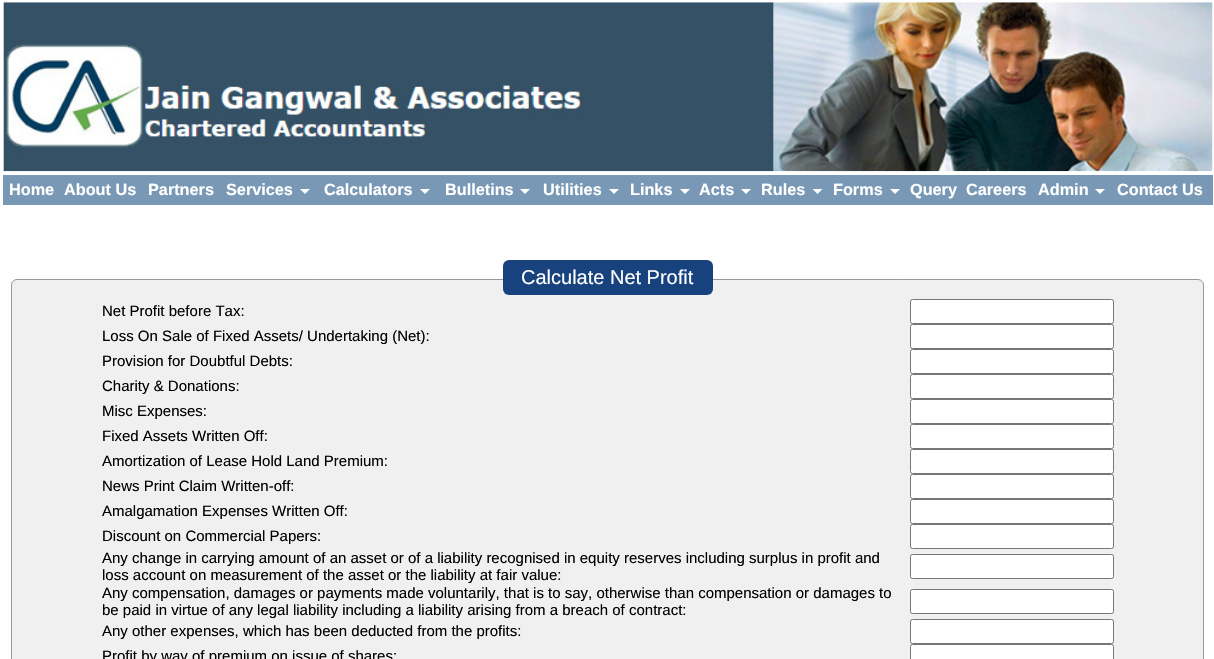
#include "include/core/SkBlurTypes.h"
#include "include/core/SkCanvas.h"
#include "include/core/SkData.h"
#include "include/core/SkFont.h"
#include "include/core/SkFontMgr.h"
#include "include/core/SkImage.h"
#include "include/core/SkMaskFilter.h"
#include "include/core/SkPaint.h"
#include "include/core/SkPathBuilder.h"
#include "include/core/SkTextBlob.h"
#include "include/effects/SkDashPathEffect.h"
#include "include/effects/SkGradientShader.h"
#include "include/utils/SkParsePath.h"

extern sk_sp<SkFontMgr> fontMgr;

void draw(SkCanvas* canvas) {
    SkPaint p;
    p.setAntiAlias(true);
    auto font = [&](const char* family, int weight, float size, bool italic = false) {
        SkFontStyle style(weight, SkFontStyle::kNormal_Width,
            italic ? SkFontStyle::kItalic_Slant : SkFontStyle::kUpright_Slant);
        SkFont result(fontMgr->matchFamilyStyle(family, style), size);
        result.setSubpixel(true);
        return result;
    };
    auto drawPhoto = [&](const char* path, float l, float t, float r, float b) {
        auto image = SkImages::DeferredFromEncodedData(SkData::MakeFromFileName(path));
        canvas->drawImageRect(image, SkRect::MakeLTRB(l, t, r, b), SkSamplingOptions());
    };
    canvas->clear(0xFFFFFFFF);
    drawPhoto("media/1.png", 3, 0, 1213, 172);
    p.setColor(0xFF7898B5);
    canvas->drawRect(SkRect::MakeLTRB(3, 175, 1213, 205), p);
    auto font1 = font("Liberation Sans", 700, 16.25f);
    p.setColor(0xFFFFFFFF);
    {
        const struct { const char* s; float x, y; } items[] = {
            {"Home", 9, 195},
            {"About Us", 64, 195},
            {"Partners", 148, 195},
            {"Services", 226, 195},
        };
        for (auto [s, x, y] : items) {
            canvas->drawString(s, x, y, font1, p);
        }
    }
    canvas->drawPath(SkPathBuilder().moveTo(300, 189).lineTo(310, 189).lineTo(305, 194).close().detach(), p);
    canvas->drawString("Calculators", 324, 195, font1, p);
    canvas->drawPath(SkPathBuilder().moveTo(420, 189).lineTo(430, 189).lineTo(425, 194).close().detach(), p);
    canvas->drawString("Bulletins", 445, 195, font1, p);
    canvas->drawPath(SkPathBuilder().moveTo(520, 189).lineTo(530, 189).lineTo(525, 194).close().detach(), p);
    canvas->drawString("Utilities", 543, 195, font1, p);
    canvas->drawPath(SkPathBuilder().moveTo(609, 189).lineTo(619, 189).lineTo(614, 194).close().detach(), p);
    canvas->drawString("Links", 630, 195, font1, p);
    canvas->drawPath(SkPathBuilder().moveTo(680, 189).lineTo(690, 189).lineTo(685, 194).close().detach(), p);
    canvas->drawString("Acts", 699, 195, font1, p);
    canvas->drawPath(SkPathBuilder().moveTo(741, 189).lineTo(751, 189).lineTo(746, 194).close().detach(), p);
    canvas->drawString("Rules", 761, 195, font1, p);
    canvas->drawPath(SkPathBuilder().moveTo(812.5f, 189).lineTo(822.5f, 189).lineTo(817.5f, 194).close().detach(), p);
    canvas->drawString("Forms", 833, 195, font1, p);
    canvas->drawPath(SkPathBuilder().moveTo(890, 189).lineTo(900, 189).lineTo(895, 194).close().detach(), p);
    {
        const struct { const char* s; float x, y; } items[] = {
            {"Query", 910, 195},
            {"Careers", 966, 195},
            {"Admin", 1038, 195},
        };
        for (auto [s, x, y] : items) {
            canvas->drawString(s, x, y, font1, p);
        }
    }
    canvas->drawPath(SkPathBuilder().moveTo(1095, 189).lineTo(1105, 189).lineTo(1100, 194).close().detach(), p);
    canvas->drawString("Contact Us", 1117, 195, font1, p);
    p.setColor(0xFFF0F0F0);
    canvas->drawRoundRect(SkRect::MakeLTRB(11.5f, 279.5f, 1203.5f, 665.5f), 5.5f, 5.5f, p);
    p.setStyle(SkPaint::kStroke_Style);
    p.setStrokeWidth(1);
    p.setColor(0xFF999999);
    canvas->drawRoundRect(SkRect::MakeLTRB(11.5f, 279.5f, 1203.5f, 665.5f), 5.5f, 5.5f, p);
    p.setStyle(SkPaint::kFill_Style);
    p.setColor(0xFF18427D);
    canvas->drawRoundRect(SkRect::MakeLTRB(503, 260, 713, 295), 6, 6, p);
    auto font2 = font("Liberation Sans", 400, 20);
    p.setColor(0xFFFFFFFF);
    canvas->drawString("Calculate Net Profit", 521, 284, font2, p);
    auto font3 = font("Liberation Sans", 400, 15);
    p.setColor(0xFF000000);
    canvas->drawString("Net Profit before Tax:", 102, 316, font3, p);
    p.setColor(0xFFFFFFFF);
    canvas->drawRoundRect(SkRect::MakeLTRB(910.5f, 299.5f, 1113.5f, 323.5f), 2, 2, p);
    p.setStyle(SkPaint::kStroke_Style);
    p.setColor(0xFF767676);
    canvas->drawRoundRect(SkRect::MakeLTRB(910.5f, 299.5f, 1113.5f, 323.5f), 2, 2, p);
    p.setStyle(SkPaint::kFill_Style);
    p.setColor(0xFF000000);
    canvas->drawString("Loss On Sale of Fixed Assets/ Undertaking (Net):", 102, 341, font3, p);
    p.setColor(0xFFFFFFFF);
    canvas->drawRoundRect(SkRect::MakeLTRB(910.5f, 324.5f, 1113.5f, 348.5f), 2, 2, p);
    p.setStyle(SkPaint::kStroke_Style);
    p.setColor(0xFF767676);
    canvas->drawRoundRect(SkRect::MakeLTRB(910.5f, 324.5f, 1113.5f, 348.5f), 2, 2, p);
    p.setStyle(SkPaint::kFill_Style);
    p.setColor(0xFF000000);
    canvas->drawString("Provision for Doubtful Debts:", 102, 366, font3, p);
    p.setColor(0xFFFFFFFF);
    canvas->drawRoundRect(SkRect::MakeLTRB(910.5f, 349.5f, 1113.5f, 373.5f), 2, 2, p);
    p.setStyle(SkPaint::kStroke_Style);
    p.setColor(0xFF767676);
    canvas->drawRoundRect(SkRect::MakeLTRB(910.5f, 349.5f, 1113.5f, 373.5f), 2, 2, p);
    p.setStyle(SkPaint::kFill_Style);
    p.setColor(0xFF000000);
    canvas->drawString("Charity & Donations:", 102, 391, font3, p);
    p.setColor(0xFFFFFFFF);
    canvas->drawRoundRect(SkRect::MakeLTRB(910.5f, 374.5f, 1113.5f, 398.5f), 2, 2, p);
    p.setStyle(SkPaint::kStroke_Style);
    p.setColor(0xFF767676);
    canvas->drawRoundRect(SkRect::MakeLTRB(910.5f, 374.5f, 1113.5f, 398.5f), 2, 2, p);
    p.setStyle(SkPaint::kFill_Style);
    p.setColor(0xFF000000);
    canvas->drawString("Misc Expenses:", 102, 416, font3, p);
    p.setColor(0xFFFFFFFF);
    canvas->drawRoundRect(SkRect::MakeLTRB(910.5f, 399.5f, 1113.5f, 423.5f), 2, 2, p);
    p.setStyle(SkPaint::kStroke_Style);
    p.setColor(0xFF767676);
    canvas->drawRoundRect(SkRect::MakeLTRB(910.5f, 399.5f, 1113.5f, 423.5f), 2, 2, p);
    p.setStyle(SkPaint::kFill_Style);
    p.setColor(0xFF000000);
    canvas->drawString("Fixed Assets Written Off:", 102, 441, font3, p);
    p.setColor(0xFFFFFFFF);
    canvas->drawRoundRect(SkRect::MakeLTRB(910.5f, 424.5f, 1113.5f, 448.5f), 2, 2, p);
    p.setStyle(SkPaint::kStroke_Style);
    p.setColor(0xFF767676);
    canvas->drawRoundRect(SkRect::MakeLTRB(910.5f, 424.5f, 1113.5f, 448.5f), 2, 2, p);
    p.setStyle(SkPaint::kFill_Style);
    p.setColor(0xFF000000);
    canvas->drawString("Amortization of Lease Hold Land Premium:", 102, 466, font3, p);
    p.setColor(0xFFFFFFFF);
    canvas->drawRoundRect(SkRect::MakeLTRB(910.5f, 449.5f, 1113.5f, 473.5f), 2, 2, p);
    p.setStyle(SkPaint::kStroke_Style);
    p.setColor(0xFF767676);
    canvas->drawRoundRect(SkRect::MakeLTRB(910.5f, 449.5f, 1113.5f, 473.5f), 2, 2, p);
    p.setStyle(SkPaint::kFill_Style);
    p.setColor(0xFF000000);
    canvas->drawString("News Print Claim Written-off:", 102, 491, font3, p);
    p.setColor(0xFFFFFFFF);
    canvas->drawRoundRect(SkRect::MakeLTRB(910.5f, 474.5f, 1113.5f, 498.5f), 2, 2, p);
    p.setStyle(SkPaint::kStroke_Style);
    p.setColor(0xFF767676);
    canvas->drawRoundRect(SkRect::MakeLTRB(910.5f, 474.5f, 1113.5f, 498.5f), 2, 2, p);
    p.setStyle(SkPaint::kFill_Style);
    p.setColor(0xFF000000);
    canvas->drawString("Amalgamation Expenses Written Off:", 102, 516, font3, p);
    p.setColor(0xFFFFFFFF);
    canvas->drawRoundRect(SkRect::MakeLTRB(910.5f, 499.5f, 1113.5f, 523.5f), 2, 2, p);
    p.setStyle(SkPaint::kStroke_Style);
    p.setColor(0xFF767676);
    canvas->drawRoundRect(SkRect::MakeLTRB(910.5f, 499.5f, 1113.5f, 523.5f), 2, 2, p);
    p.setStyle(SkPaint::kFill_Style);
    p.setColor(0xFF000000);
    canvas->drawString("Discount on Commercial Papers:", 102, 541, font3, p);
    p.setColor(0xFFFFFFFF);
    canvas->drawRoundRect(SkRect::MakeLTRB(910.5f, 524.5f, 1113.5f, 548.5f), 2, 2, p);
    p.setStyle(SkPaint::kStroke_Style);
    p.setColor(0xFF767676);
    canvas->drawRoundRect(SkRect::MakeLTRB(910.5f, 524.5f, 1113.5f, 548.5f), 2, 2, p);
    p.setStyle(SkPaint::kFill_Style);
    p.setColor(0xFF000000);
    canvas->drawString("Any change in carrying amount of an asset or of a liability recognised in equity reserves including surplus in profit and", 102, 563, font3, p);
    canvas->drawString("loss account on measurement of the asset or the liability at fair value:", 102, 580, font3, p);
    p.setColor(0xFFFFFFFF);
    canvas->drawRoundRect(SkRect::MakeLTRB(910.5f, 554.5f, 1113.5f, 578.5f), 2, 2, p);
    p.setStyle(SkPaint::kStroke_Style);
    p.setColor(0xFF767676);
    canvas->drawRoundRect(SkRect::MakeLTRB(910.5f, 554.5f, 1113.5f, 578.5f), 2, 2, p);
    p.setStyle(SkPaint::kFill_Style);
    p.setColor(0xFF000000);
    canvas->drawString("Any compensation, damages or payments made voluntarily, that is to say, otherwise than compensation or damages to", 102, 598, font3, p);
    canvas->drawString("be paid in virtue of any legal liability including a liability arising from a breach of contract:", 102, 615, font3, p);
    p.setColor(0xFFFFFFFF);
    canvas->drawRoundRect(SkRect::MakeLTRB(910.5f, 589.5f, 1113.5f, 613.5f), 2, 2, p);
    p.setStyle(SkPaint::kStroke_Style);
    p.setColor(0xFF767676);
    canvas->drawRoundRect(SkRect::MakeLTRB(910.5f, 589.5f, 1113.5f, 613.5f), 2, 2, p);
    p.setStyle(SkPaint::kFill_Style);
    p.setColor(0xFF000000);
    canvas->drawString("Any other expenses, which has been deducted from the profits:", 102, 636, font3, p);
    p.setColor(0xFFFFFFFF);
    canvas->drawRoundRect(SkRect::MakeLTRB(910.5f, 619.5f, 1113.5f, 643.5f), 2, 2, p);
    p.setStyle(SkPaint::kStroke_Style);
    p.setColor(0xFF767676);
    canvas->drawRoundRect(SkRect::MakeLTRB(910.5f, 619.5f, 1113.5f, 643.5f), 2, 2, p);
    p.setStyle(SkPaint::kFill_Style);
    p.setColor(0xFF000000);
    canvas->drawString("Profit by way of premium on issue of shares:", 102, 661, font3, p);
    p.setColor(0xFFFFFFFF);
    canvas->drawRoundRect(SkRect::MakeLTRB(910.5f, 644.5f, 1113.5f, 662.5f), 2, 2, p);
    p.setStyle(SkPaint::kStroke_Style);
    p.setColor(0xFF767676);
    canvas->drawRoundRect(SkRect::MakeLTRB(910.5f, 644.5f, 1113.5f, 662.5f), 2, 2, p);
}
